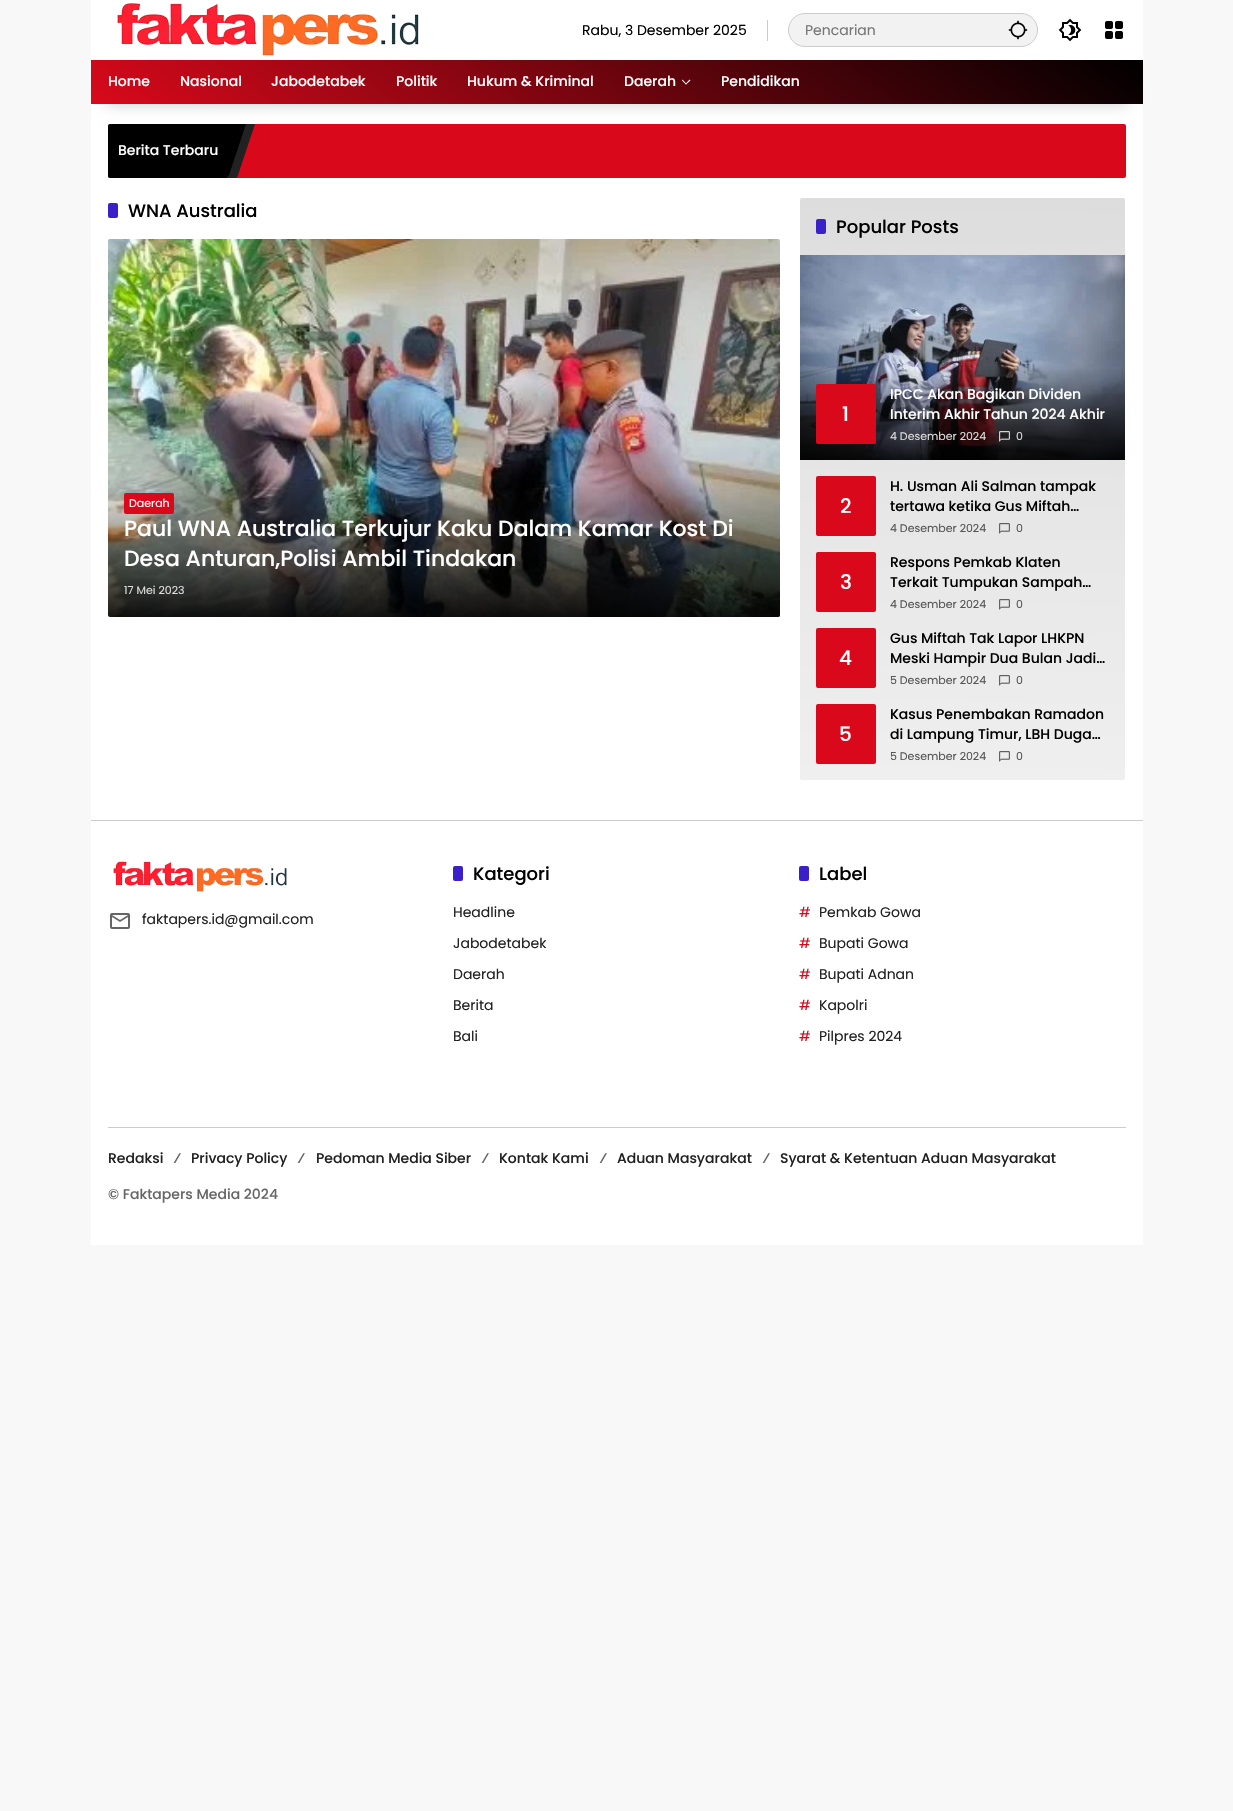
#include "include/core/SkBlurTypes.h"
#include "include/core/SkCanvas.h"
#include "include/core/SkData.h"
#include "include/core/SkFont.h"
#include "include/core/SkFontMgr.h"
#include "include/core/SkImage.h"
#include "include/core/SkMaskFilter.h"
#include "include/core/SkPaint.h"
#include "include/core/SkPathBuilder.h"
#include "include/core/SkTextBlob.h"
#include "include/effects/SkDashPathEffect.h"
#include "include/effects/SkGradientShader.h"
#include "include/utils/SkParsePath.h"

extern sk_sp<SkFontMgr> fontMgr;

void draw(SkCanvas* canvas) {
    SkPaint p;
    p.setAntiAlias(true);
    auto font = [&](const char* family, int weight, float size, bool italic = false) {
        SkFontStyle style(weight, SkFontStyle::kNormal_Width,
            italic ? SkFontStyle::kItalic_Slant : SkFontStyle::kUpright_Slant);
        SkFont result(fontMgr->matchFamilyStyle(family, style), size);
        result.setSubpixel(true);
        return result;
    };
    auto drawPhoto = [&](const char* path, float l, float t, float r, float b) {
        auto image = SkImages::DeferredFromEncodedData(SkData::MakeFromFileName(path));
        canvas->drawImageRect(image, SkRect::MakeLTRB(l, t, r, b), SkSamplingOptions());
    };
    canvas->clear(0xFFF8F8F8);
    p.setColor(0xFFFFFFFF);
    canvas->drawRect(SkRect::MakeLTRB(91, 0, 1143, 1245), p);
    drawPhoto("media/1.png", 117, 3, 419, 56);
    p.setColor(0xFFCCCCCC);
    canvas->drawRect(SkRect::MakeLTRB(767, 20, 768, 41), p);
    auto font1 = font("Poppins", 400, 14);
    p.setColor(0xFF000000);
    canvas->drawString("Rabu, 3 Desember 2025", 582, 35, font1, p);
    p.setColor(0xFFF2F2F2);
    canvas->drawRoundRect(SkRect::MakeLTRB(788.5f, 13.5f, 1037.5f, 46.5f), 16.5f, 16.5f, p);
    p.setStyle(SkPaint::kStroke_Style);
    p.setStrokeWidth(1);
    p.setColor(0xFFCCCCCC);
    canvas->drawRoundRect(SkRect::MakeLTRB(788.5f, 13.5f, 1037.5f, 46.5f), 16.5f, 16.5f, p);
    p.setStyle(SkPaint::kFill_Style);
    p.setColor(0xFF757575);
    canvas->drawString("Pencarian", 805, 35, font1, p);
    drawPhoto("media/2.png", 1008, 20, 1028, 40);
    drawPhoto("media/3.png", 1058, 18, 1082, 42);
    drawPhoto("media/4.png", 1105, 21, 1123, 39);
    p.setColor(0xFFD9091B);
    canvas->drawRoundRect(SkRect::MakeLTRB(108, 124, 1126, 178), 2, 2, p);
    p.setColor(0xFF000000);
    canvas->drawPath(SkPathBuilder().moveTo(110, 124).lineTo(228, 124).lineTo(228, 178).lineTo(110, 178).cubicTo(109, 178, 108, 177, 108, 176).lineTo(108, 126).cubicTo(108, 125, 109, 124, 110, 124).close().detach(), p);
    p.setColor(0xFF222222);
    canvas->drawPath(SkPathBuilder().moveTo(245, 124).lineTo(255, 124).lineTo(237, 178).lineTo(227, 178).close().detach(), p);
    p.setColor(0xFF000000);
    canvas->drawPath(SkPathBuilder().moveTo(228, 124).lineTo(246, 124).lineTo(228, 178).close().detach(), p);
    p.setColor(0x33000000);
    p.setMaskFilter(SkMaskFilter::MakeBlur(kNormal_SkBlurStyle, 7.5f));
    canvas->drawRect(SkRect::MakeLTRB(106, 90, 1128, 104), p);
    p.setMaskFilter(nullptr);
    {
        const SkColor colors[] = {0xFFD9091B, 0xFF000000};
        const float stops[] = {0, 1};
        const SkPoint ends[] = {{425, 347}, {809, -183}};
        p.setShader(SkGradientShader::MakeLinear(ends, colors, stops, 2, SkTileMode::kClamp));
        p.setAlpha(255);
    }
    canvas->drawRect(SkRect::MakeLTRB(91, 60, 1143, 104), p);
    auto font2 = font("Poppins", 500, 14);
    p.setShader(nullptr);
    p.setColor(0xFFFFFFFF);
    {
        const struct { const char* s; float x, y; } items[] = {
            {"Home", 108, 86},
            {"Nasional", 180, 86},
            {"Jabodetabek", 271, 86},
            {"Politik", 396, 86},
            {"Hukum & Kriminal", 467, 86},
            {"Daerah", 624, 86},
        };
        for (auto [s, x, y] : items) {
            canvas->drawString(s, x, y, font2, p);
        }
    }
    canvas->drawPath(SkPathBuilder().moveTo(689.5f, 79.5f).lineTo(690.5f, 80.5f).lineTo(686, 84.5f).lineTo(685.5f, 84).close().detach(), p);
    canvas->drawPath(SkPathBuilder().moveTo(682.5f, 79.5f).lineTo(686.5f, 84).lineTo(686, 84.5f).lineTo(682, 80.5f).close().detach(), p);
    canvas->drawString("Pendidikan", 721, 86, font2, p);
    canvas->drawString("Berita Terbaru", 118, 155, font2, p);
    p.setColor(0xFF3920C9);
    canvas->drawRoundRect(SkRect::MakeLTRB(108, 203, 118, 218), 2, 2, p);
    auto font3 = font("Poppins", 500, 18);
    p.setColor(0xFF000000);
    canvas->drawString("WNA Australia", 128, 217, font3, p);
    drawPhoto("media/5.png", 108, 239, 780, 617);
    {
        const SkColor colors[] = {0xE6000000, 0x00000000, 0x00FFFFFF};
        const float stops[] = {0, 1, 1};
        const SkPoint ends[] = {{444, 617}, {444, 477}};
        p.setShader(SkGradientShader::MakeLinear(ends, colors, stops, 3, SkTileMode::kClamp));
        p.setAlpha(255);
    }
    canvas->drawPath(SkPathBuilder().moveTo(108, 477).lineTo(780, 477).lineTo(780, 615).cubicTo(780, 616, 779, 617, 778, 617).lineTo(110, 617).cubicTo(109, 617, 108, 616, 108, 615).close().detach(), p);
    p.setShader(nullptr);
    p.setColor(0xFFD9091B);
    canvas->drawRoundRect(SkRect::MakeLTRB(124, 493, 174, 514), 2, 2, p);
    auto font4 = font("Poppins", 400, 11);
    p.setColor(0xFFFFFFFF);
    canvas->drawString("Daerah", 129, 507, font4, p);
    auto font5 = font("Poppins", 500, 22);
    canvas->drawString("Paul WNA Australia Terkujur Kaku Dalam Kamar Kost Di", 124, 536, font5, p);
    canvas->drawString("Desa Anturan,Polisi Ambil Tindakan", 124, 566, font5, p);
    p.setColor(0xFFDDDDDD);
    canvas->drawString("17 Mei 2023", 124, 594, font4, p);
    {
        const SkColor colors[] = {0xFFEFEFEF, 0xFFDDDDDD};
        const float stops[] = {0, 1};
        const SkPoint ends[] = {{957, 783}, {968, 195}};
        p.setShader(SkGradientShader::MakeLinear(ends, colors, stops, 2, SkTileMode::kClamp));
        p.setAlpha(255);
    }
    canvas->drawRoundRect(SkRect::MakeLTRB(800, 198, 1125, 780), 2, 2, p);
    p.setShader(nullptr);
    p.setColor(0xFF3920C9);
    canvas->drawRoundRect(SkRect::MakeLTRB(816, 219, 826, 234), 2, 2, p);
    p.setColor(0xFF000000);
    canvas->drawString("Popular Posts", 836, 233, font3, p);
    drawPhoto("media/6.png", 800, 255, 1125, 460);
    p.setColor(0xFFD9091B);
    canvas->drawRoundRect(SkRect::MakeLTRB(816, 384, 876, 444), 2, 2, p);
    auto font6 = font("Poppins", 500, 20);
    p.setColor(0xFFFFFFFF);
    canvas->drawString("1", 842, 421, font6, p);
    canvas->drawString("IPCC Akan Bagikan Dividen", 890, 399, font2, p);
    canvas->drawString("Interim Akhir Tahun 2024 Akhir", 890, 419, font2, p);
    p.setColor(0xFFDDDDDD);
    canvas->drawString("4 Desember 2024", 890, 440, font4, p);
    drawPhoto("media/7.png", 999, 431, 1010, 442);
    canvas->drawString("0", 1016, 440, font4, p);
    p.setColor(0xFFD9091B);
    canvas->drawRoundRect(SkRect::MakeLTRB(816, 476, 876, 536), 2, 2, p);
    p.setColor(0xFFFFFFFF);
    canvas->drawString("2", 840, 513, font6, p);
    p.setColor(0xFF000000);
    canvas->drawString("H. Usman Ali Salman tampak", 890, 491, font2, p);
    canvas->drawString("tertawa ketika Gus Miftah…", 890, 511, font2, p);
    p.setColor(0xFF555555);
    canvas->drawString("4 Desember 2024", 890, 532, font4, p);
    drawPhoto("media/8.png", 999, 523, 1010, 534);
    canvas->drawString("0", 1016, 532, font4, p);
    p.setColor(0xFFD9091B);
    canvas->drawRoundRect(SkRect::MakeLTRB(816, 552, 876, 612), 2, 2, p);
    p.setColor(0xFFFFFFFF);
    canvas->drawString("3", 840, 589, font6, p);
    p.setColor(0xFF000000);
    canvas->drawString("Respons Pemkab Klaten", 890, 567, font2, p);
    canvas->drawString("Terkait Tumpukan Sampah…", 890, 587, font2, p);
    p.setColor(0xFF555555);
    canvas->drawString("4 Desember 2024", 890, 608, font4, p);
    drawPhoto("media/9.png", 999, 599, 1010, 610);
    canvas->drawString("0", 1016, 608, font4, p);
    p.setColor(0xFFD9091B);
    canvas->drawRoundRect(SkRect::MakeLTRB(816, 628, 876, 688), 2, 2, p);
    p.setColor(0xFFFFFFFF);
    canvas->drawString("4", 839, 665, font6, p);
    p.setColor(0xFF000000);
    canvas->drawString("Gus Miftah Tak Lapor LHKPN", 890, 643, font2, p);
    canvas->drawString("Meski Hampir Dua Bulan Jadi…", 890, 663, font2, p);
    p.setColor(0xFF555555);
    canvas->drawString("5 Desember 2024", 890, 684, font4, p);
    drawPhoto("media/10.png", 999, 675, 1010, 686);
    canvas->drawString("0", 1016, 684, font4, p);
    p.setColor(0xFFD9091B);
    canvas->drawRoundRect(SkRect::MakeLTRB(816, 704, 876, 764), 2, 2, p);
    p.setColor(0xFFFFFFFF);
    canvas->drawString("5", 839, 741, font6, p);
    p.setColor(0xFF000000);
    canvas->drawString("Kasus Penembakan Ramadon", 890, 719, font2, p);
    canvas->drawString("di Lampung Timur, LBH Duga…", 890, 739, font2, p);
    p.setColor(0xFF555555);
    canvas->drawString("5 Desember 2024", 890, 760, font4, p);
    drawPhoto("media/11.png", 999, 751, 1010, 762);
    canvas->drawString("0", 1016, 760, font4, p);
    p.setColor(0xFFCCCCCC);
    canvas->drawRect(SkRect::MakeLTRB(91, 820, 1143, 821), p);
    drawPhoto("media/12.png", 113, 861, 287, 892);
    drawPhoto("media/13.png", 110, 913, 130, 929);
    p.setColor(0xFF212121);
    canvas->drawString("faktapers.id@gmail.com", 142, 924, font1, p);
    p.setColor(0xFF3920C9);
    canvas->drawRoundRect(SkRect::MakeLTRB(453, 866, 463, 881), 2, 2, p);
    p.setColor(0xFF000000);
    canvas->drawString("Kategori", 473, 880, font3, p);
    p.setColor(0xFF212121);
    {
        const struct { const char* s; float x, y; } items[] = {
            {"Headline", 453, 917},
            {"Jabodetabek", 453, 948},
            {"Daerah", 453, 979},
            {"Berita", 453, 1010},
            {"Bali", 453, 1041},
        };
        for (auto [s, x, y] : items) {
            canvas->drawString(s, x, y, font1, p);
        }
    }
    p.setColor(0xFF3920C9);
    canvas->drawRoundRect(SkRect::MakeLTRB(799, 866, 809, 881), 2, 2, p);
    p.setColor(0xFF000000);
    canvas->drawString("Label", 819, 880, font3, p);
    p.setColor(0xFFD9091B);
    canvas->drawString("#", 799, 917, font1, p);
    p.setColor(0xFF212121);
    canvas->drawString("Pemkab Gowa", 819, 917, font1, p);
    p.setColor(0xFFD9091B);
    canvas->drawString("#", 799, 948, font1, p);
    p.setColor(0xFF212121);
    canvas->drawString("Bupati Gowa", 819, 948, font1, p);
    p.setColor(0xFFD9091B);
    canvas->drawString("#", 799, 979, font1, p);
    p.setColor(0xFF212121);
    canvas->drawString("Bupati Adnan", 819, 979, font1, p);
    p.setColor(0xFFD9091B);
    canvas->drawString("#", 799, 1010, font1, p);
    p.setColor(0xFF212121);
    canvas->drawString("Kapolri", 819, 1010, font1, p);
    p.setColor(0xFFD9091B);
    canvas->drawString("#", 799, 1041, font1, p);
    p.setColor(0xFF212121);
    canvas->drawString("Pilpres 2024", 819, 1041, font1, p);
    p.setColor(0xFFCCCCCC);
    canvas->drawRect(SkRect::MakeLTRB(108, 1127, 1126, 1128), p);
    p.setColor(0xFF212121);
    canvas->drawString("Redaksi", 108, 1163, font2, p);
    p.setColor(0xFF666666);
    canvas->drawString("⁄", 173, 1163, font2, p);
    p.setColor(0xFF212121);
    canvas->drawString("Privacy Policy", 191, 1163, font2, p);
    p.setColor(0xFF666666);
    canvas->drawString("⁄", 297, 1163, font2, p);
    p.setColor(0xFF212121);
    canvas->drawString("Pedoman Media Siber", 316, 1163, font2, p);
    p.setColor(0xFF666666);
    canvas->drawString("⁄", 481, 1163, font2, p);
    p.setColor(0xFF212121);
    canvas->drawString("Kontak Kami", 499, 1163, font2, p);
    p.setColor(0xFF666666);
    canvas->drawString("⁄", 599, 1163, font2, p);
    p.setColor(0xFF212121);
    canvas->drawString("Aduan Masyarakat", 617, 1163, font2, p);
    p.setColor(0xFF666666);
    canvas->drawString("⁄", 762, 1163, font2, p);
    p.setColor(0xFF212121);
    canvas->drawString("Syarat & Ketentuan Aduan Masyarakat", 780, 1163, font2, p);
    p.setColor(0xFF666666);
    canvas->drawString("© Faktapers Media 2024", 108, 1199, font2, p);
}
